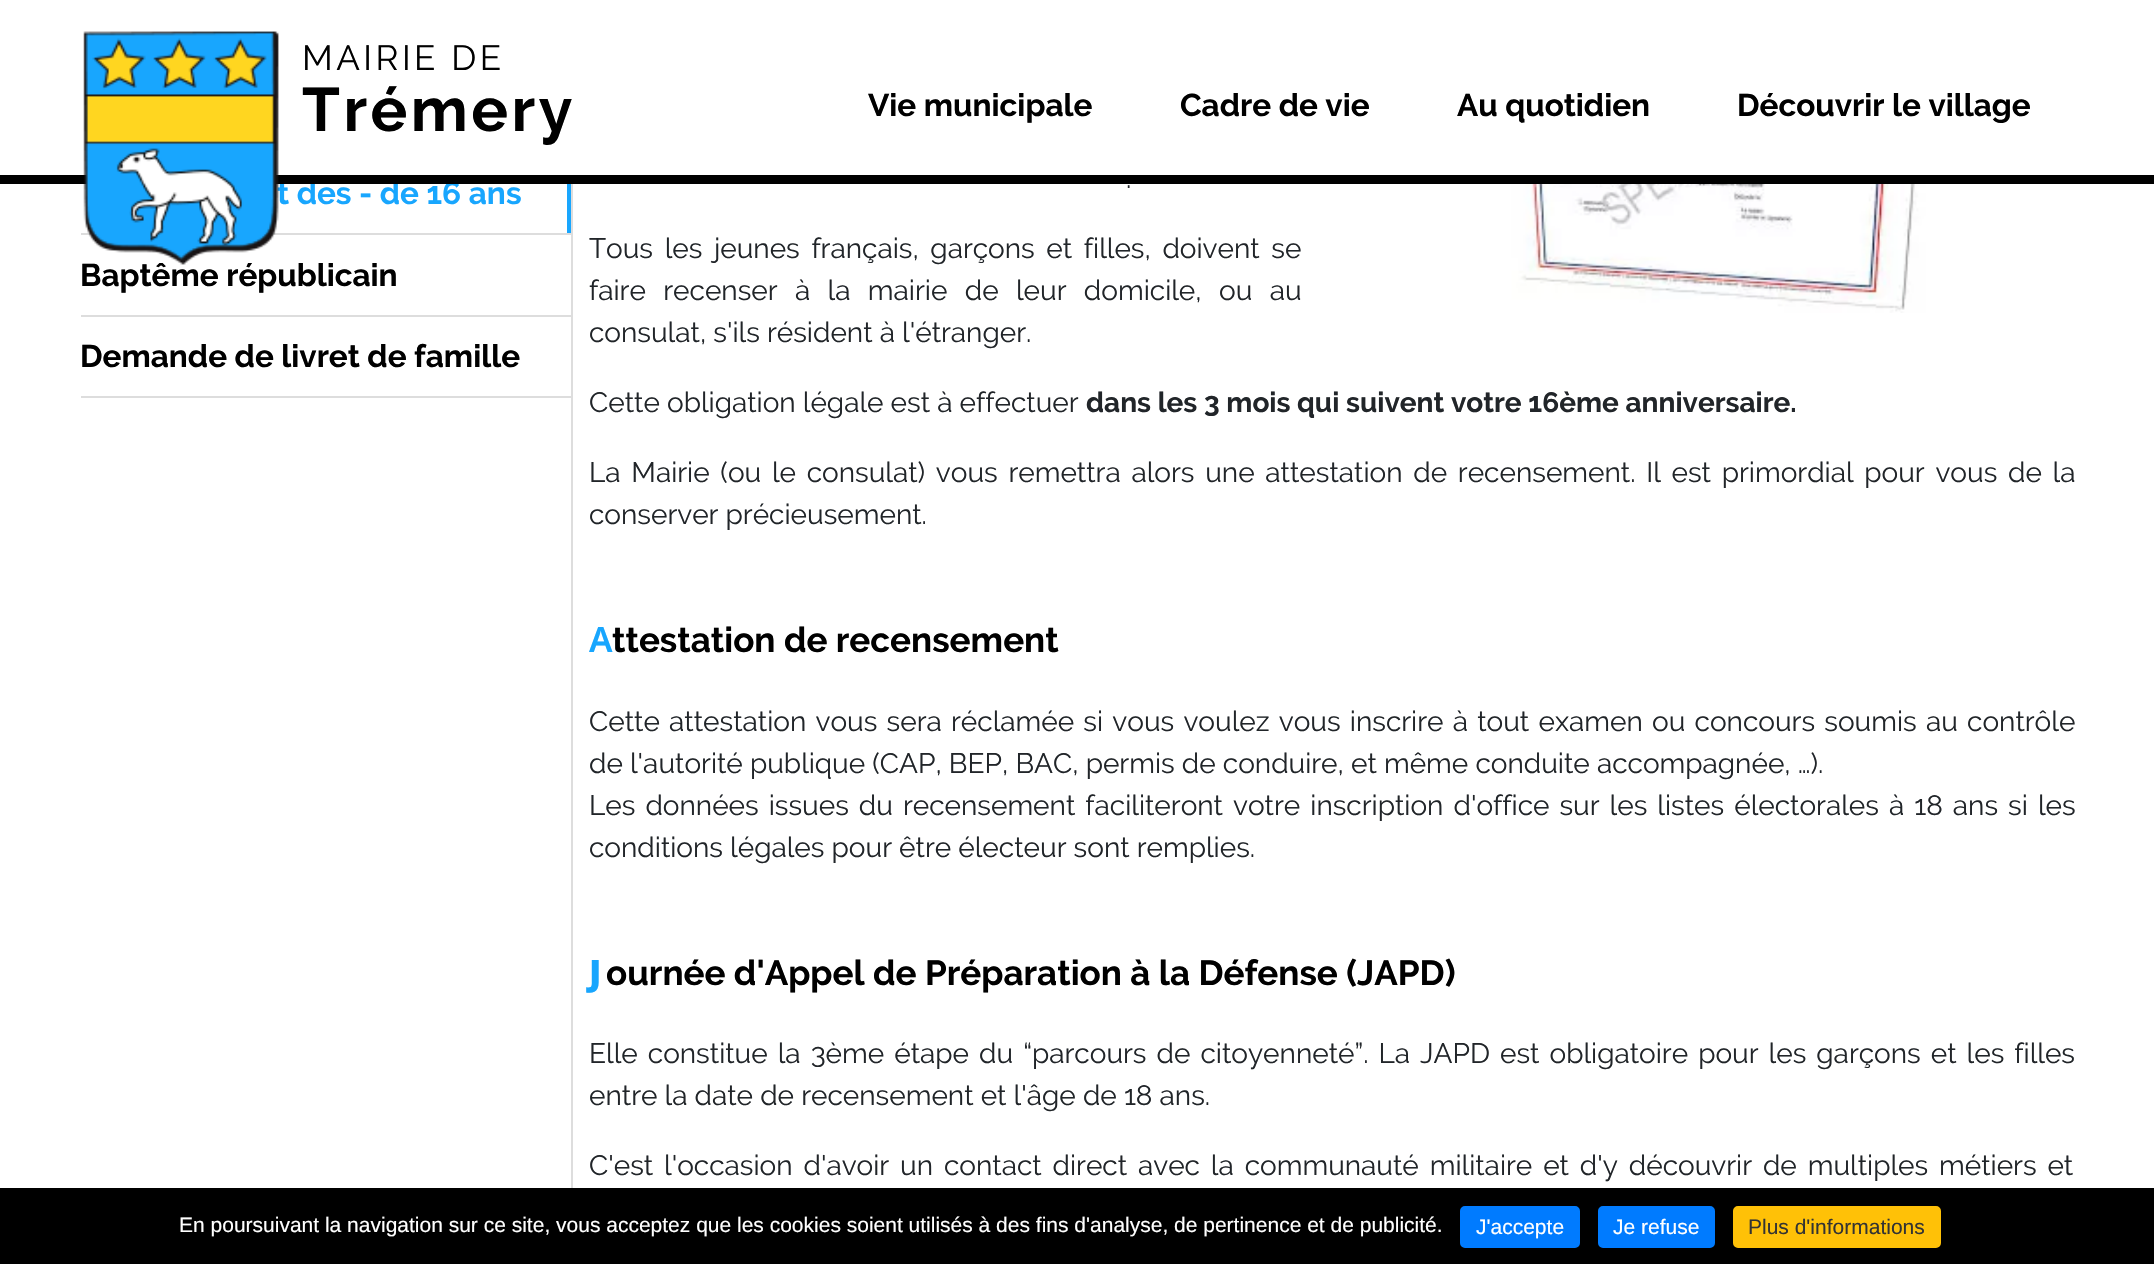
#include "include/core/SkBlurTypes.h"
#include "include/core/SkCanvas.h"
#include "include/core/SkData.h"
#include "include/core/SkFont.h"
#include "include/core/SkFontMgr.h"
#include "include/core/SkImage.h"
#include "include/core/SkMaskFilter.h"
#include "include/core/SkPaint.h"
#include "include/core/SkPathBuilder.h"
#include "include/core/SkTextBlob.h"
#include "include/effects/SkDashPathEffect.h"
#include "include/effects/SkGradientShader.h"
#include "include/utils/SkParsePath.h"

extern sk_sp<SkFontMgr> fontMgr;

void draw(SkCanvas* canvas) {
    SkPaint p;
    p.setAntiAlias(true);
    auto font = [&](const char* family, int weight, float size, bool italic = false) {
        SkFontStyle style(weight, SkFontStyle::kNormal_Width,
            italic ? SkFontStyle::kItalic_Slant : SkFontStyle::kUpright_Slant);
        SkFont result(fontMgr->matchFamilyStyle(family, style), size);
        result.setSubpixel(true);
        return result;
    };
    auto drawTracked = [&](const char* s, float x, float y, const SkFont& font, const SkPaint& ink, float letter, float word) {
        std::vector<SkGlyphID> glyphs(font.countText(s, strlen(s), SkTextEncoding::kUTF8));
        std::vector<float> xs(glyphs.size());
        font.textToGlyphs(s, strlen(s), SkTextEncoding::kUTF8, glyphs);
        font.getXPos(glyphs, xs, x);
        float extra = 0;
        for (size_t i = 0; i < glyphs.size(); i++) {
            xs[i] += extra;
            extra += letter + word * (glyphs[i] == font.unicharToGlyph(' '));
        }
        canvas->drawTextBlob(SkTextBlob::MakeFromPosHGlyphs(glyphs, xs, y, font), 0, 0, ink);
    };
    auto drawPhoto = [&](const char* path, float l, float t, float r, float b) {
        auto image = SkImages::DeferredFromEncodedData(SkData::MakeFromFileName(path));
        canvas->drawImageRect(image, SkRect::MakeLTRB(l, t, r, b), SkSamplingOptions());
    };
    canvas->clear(0xFFFFFFFF);
    auto font1 = font("Raleway", 700, 31.5f);
    p.setColor(0xFF18A6FE);
    canvas->drawString("t des - de 16 ans", 277, 204, font1, p);
    p.setColor(0xFF000000);
    canvas->drawRect(SkRect::MakeLTRB(0, 175, 2154, 184), p);
    p.setColor(0xFFDDDDDD);
    canvas->drawRect(SkRect::MakeLTRB(81, 233, 572, 235), p);
    p.setColor(0xFF000000);
    canvas->drawString("Baptême républicain", 80, 286, font1, p);
    drawPhoto("media/1.png", 83, 31, 279, 265);
    auto font2 = font("Raleway", 400, 35);
    drawTracked("MAIRIE DE", 302, 70, font2, p, 3.5f, 0);
    auto font3 = font("Raleway", 700, 61.25f);
    drawTracked("Trémery", 302, 131, font3, p, 3.5f, 0);
    {
        const struct { const char* s; float x, y; } items[] = {
            {"Vie municipale", 868, 116},
            {"Cadre de vie", 1180, 116},
            {"Au quotidien", 1457, 116},
            {"Découvrir le village", 1737, 116},
        };
        for (auto [s, x, y] : items) {
            canvas->drawString(s, x, y, font1, p);
        }
    }
    {
        const struct { float l, t, r, b; SkColor color; } items[] = {
            {567, 184, 571, 233, 0xFF18A6FE},
            {81, 315, 572, 317, 0xFFDDDDDD},
            {81, 396, 572, 398, 0xFFDDDDDD},
        };
        for (auto [l, t, r, b, color] : items) {
            p.setColor(color);
            canvas->drawRect(SkRect::MakeLTRB(l, t, r, b), p);
        }
    }
    p.setColor(0xFF000000);
    canvas->drawString("Demande de livret de famille", 80, 367, font1, p);
    p.setColor(0xFFDDDDDD);
    canvas->drawRect(SkRect::MakeLTRB(571, 184, 573, 1188), p);
    auto font4 = font("Raleway", 400, 28);
    p.setColor(0xFF212529);
    canvas->drawString(".", 1126, 188, font4, p);
    drawTracked("Tous les jeunes français, garçons et filles, doivent se", 589, 258, font4, p, 0, 4.5f);
    drawTracked("faire recenser à la mairie de leur domicile, ou au", 589, 300, font4, p, 0, 10.25f);
    canvas->drawString("consulat, s'ils résident à l'étranger.", 589, 342, font4, p);
    drawPhoto("media/2.png", 1498, 184, 1932, 313);
    canvas->drawString("Cette obligation légale est à effectuer", 589, 412, font4, p);
    auto font5 = font("Raleway", 700, 28);
    canvas->drawString("dans les 3 mois qui suivent votre 16ème anniversaire.", 1086, 412, font5, p);
    drawTracked("La Mairie (ou le consulat) vous remettra alors une attestation de recensement. Il est primordial pour vous de la", 589, 482, font4, p, 0, 3.6f);
    canvas->drawString("conserver précieusement.", 589, 524, font4, p);
    auto font6 = font("Noto Sans", 600, 35);
    p.setColor(0xFF18A6FE);
    canvas->drawString("A", 589, 652, font6, p);
    auto font7 = font("Raleway", 700, 35);
    p.setColor(0xFF000000);
    canvas->drawString("ttestation de recensement", 612, 652, font7, p);
    p.setColor(0xFF212529);
    drawTracked("Cette attestation vous sera réclamée si vous voulez vous inscrire à tout examen ou concours soumis au contrôle", 589, 731, font4, p, 0, 2.1f);
    canvas->drawString("de l'autorité publique (CAP, BEP, BAC, permis de conduire, et même conduite accompagnée, …).", 589, 773, font4, p);
    drawTracked("Les données issues du recensement faciliteront votre inscription d'office sur les listes électorales à 18 ans si les", 589, 815, font4, p, 0, 2.9f);
    canvas->drawString("conditions légales pour être électeur sont remplies.", 589, 857, font4, p);
    auto font8 = font("Noto Sans", 900, 35);
    p.setColor(0xFF18A6FE);
    canvas->drawString("J", 589, 985, font8, p);
    p.setColor(0xFF000000);
    canvas->drawString("ournée d'Appel de Préparation à la Défense (JAPD)", 606, 985, font7, p);
    p.setColor(0xFF212529);
    drawTracked("Elle constitue la 3ème étape du “parcours de citoyenneté”. La JAPD est obligatoire pour les garçons et les filles", 589, 1063, font4, p, 0, 2.9f);
    canvas->drawString("entre la date de recensement et l'âge de 18 ans.", 589, 1105, font4, p);
    drawTracked("C'est l'occasion d'avoir un contact direct avec la communauté militaire et d'y découvrir de multiples métiers et", 589, 1175, font4, p, 0, 3.75f);
    p.setColor(0xFF000000);
    canvas->drawRect(SkRect::MakeLTRB(0, 1188, 2154, 1264), p);
    auto font9 = font("Liberation Sans", 400, 21);
    p.setColor(0xFFFFFFFF);
    canvas->drawString("En poursuivant la navigation sur ce site, vous acceptez que les cookies soient utilisés à des fins d'analyse, de pertinence et de publicité.", 179, 1232, font9, p);
    p.setColor(0xFF007BFF);
    canvas->drawRoundRect(SkRect::MakeLTRB(1461, 1207, 1579, 1247), 4, 4, p);
    p.setStyle(SkPaint::kStroke_Style);
    p.setStrokeWidth(2);
    canvas->drawRoundRect(SkRect::MakeLTRB(1461, 1207, 1579, 1247), 4, 4, p);
    p.setStyle(SkPaint::kFill_Style);
    p.setColor(0xFFFFFFFF);
    canvas->drawString("J'accepte", 1476, 1234, font9, p);
    p.setColor(0xFF007BFF);
    canvas->drawRoundRect(SkRect::MakeLTRB(1599, 1207, 1714, 1247), 4, 4, p);
    p.setStyle(SkPaint::kStroke_Style);
    canvas->drawRoundRect(SkRect::MakeLTRB(1599, 1207, 1714, 1247), 4, 4, p);
    p.setStyle(SkPaint::kFill_Style);
    p.setColor(0xFFFFFFFF);
    canvas->drawString("Je refuse", 1613, 1234, font9, p);
    p.setColor(0xFFFFC107);
    canvas->drawRoundRect(SkRect::MakeLTRB(1734, 1207, 1940, 1247), 4, 4, p);
    p.setStyle(SkPaint::kStroke_Style);
    canvas->drawRoundRect(SkRect::MakeLTRB(1734, 1207, 1940, 1247), 4, 4, p);
    p.setStyle(SkPaint::kFill_Style);
    p.setColor(0xFF333333);
    canvas->drawString("Plus d'informations", 1748, 1234, font9, p);
}
